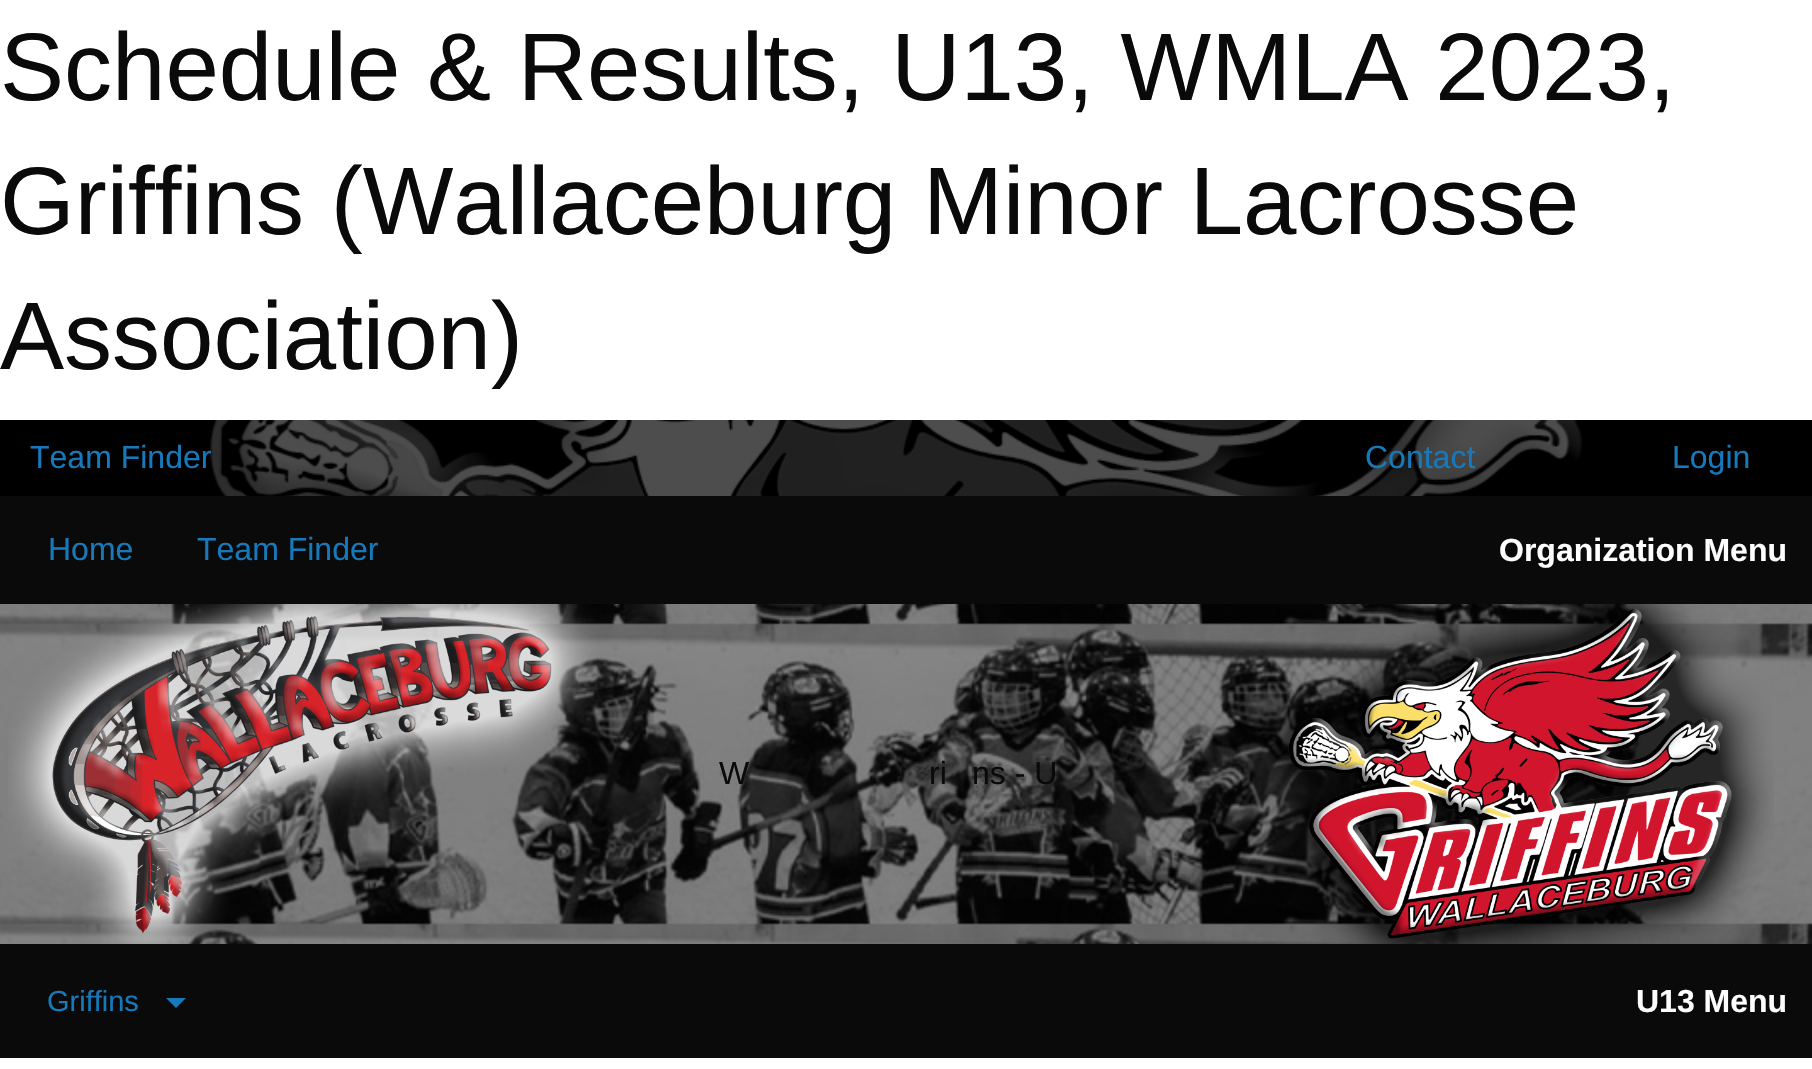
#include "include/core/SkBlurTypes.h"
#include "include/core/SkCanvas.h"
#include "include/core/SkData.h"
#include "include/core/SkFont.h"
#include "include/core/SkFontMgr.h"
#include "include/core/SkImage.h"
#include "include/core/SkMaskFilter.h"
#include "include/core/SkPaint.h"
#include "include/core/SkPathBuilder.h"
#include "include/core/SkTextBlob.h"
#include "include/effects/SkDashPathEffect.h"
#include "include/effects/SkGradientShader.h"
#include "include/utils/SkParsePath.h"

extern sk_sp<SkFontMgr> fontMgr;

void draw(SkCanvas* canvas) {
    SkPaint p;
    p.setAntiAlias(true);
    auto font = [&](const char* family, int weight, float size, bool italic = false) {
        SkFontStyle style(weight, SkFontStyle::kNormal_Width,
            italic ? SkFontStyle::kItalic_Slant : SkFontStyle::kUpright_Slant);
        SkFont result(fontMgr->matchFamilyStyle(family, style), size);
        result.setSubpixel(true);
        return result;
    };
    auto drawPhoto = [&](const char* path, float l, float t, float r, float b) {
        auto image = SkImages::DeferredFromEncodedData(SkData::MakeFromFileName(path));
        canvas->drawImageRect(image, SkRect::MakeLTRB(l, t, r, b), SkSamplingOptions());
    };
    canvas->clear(0xFFFFFFFF);
    auto font1 = font("Liberation Sans", 400, 96);
    p.setColor(0xFF0A0A0A);
    {
        const struct { const char* s; float x, y; } items[] = {
            {"Schedule & Results, U13, WMLA 2023,", 0, 100},
            {"Griffins (Wallaceburg Minor Lacrosse", 0, 234},
            {"Association)", 0, 369},
        };
        for (auto [s, x, y] : items) {
            canvas->drawString(s, x, y, font1, p);
        }
    }
    p.setColor(0xFF000000);
    canvas->drawRect(SkRect::MakeLTRB(0, 420, 1812, 496), p);
    drawPhoto("media/1.png", 210, 420, 1583, 496);
    auto font2 = font("Liberation Sans", 400, 32);
    p.setColor(0xFF1779BA);
    {
        const struct { const char* s; float x, y; } items[] = {
            {"Team Finder", 30, 468},
            {"Contact", 1365, 468},
            {"Login", 1672, 468},
        };
        for (auto [s, x, y] : items) {
            canvas->drawString(s, x, y, font2, p);
        }
    }
    p.setColor(0xFF0A0A0A);
    canvas->drawRect(SkRect::MakeLTRB(0, 496, 1812, 604), p);
    p.setColor(0xFF1779BA);
    canvas->drawString("Home", 48, 560, font2, p);
    canvas->drawString("Team Finder", 197, 560, font2, p);
    auto font3 = font("Liberation Sans", 700, 32);
    p.setColor(0xFFFEFEFE);
    canvas->drawString("Organization Menu", 1499, 561, font3, p);
    drawPhoto("media/2.png", 0, 604, 1812, 944);
    drawPhoto("media/3.png", 8, 604, 597, 944);
    p.setColor(0xFF0A0A0A);
    {
        const struct { const char* s; float x, y; } items[] = {
            {"W", 719, 784},
            {"ri", 929, 784},
            {"ns - U", 972, 784},
        };
        for (auto [s, x, y] : items) {
            canvas->drawString(s, x, y, font2, p);
        }
    }
    drawPhoto("media/4.png", 1248, 604, 1774, 944);
    canvas->drawRect(SkRect::MakeLTRB(0, 944, 1812, 1058), p);
    auto font4 = font("Liberation Sans", 400, 29);
    p.setColor(0xFF1779BA);
    canvas->drawString("Griffins", 47, 1011, font4, p);
    canvas->drawPath(SkPathBuilder().moveTo(166, 998).lineTo(186, 998).lineTo(176, 1008).close().detach(), p);
    p.setColor(0xFFFEFEFE);
    canvas->drawString("U13 Menu", 1636, 1012, font3, p);
}
